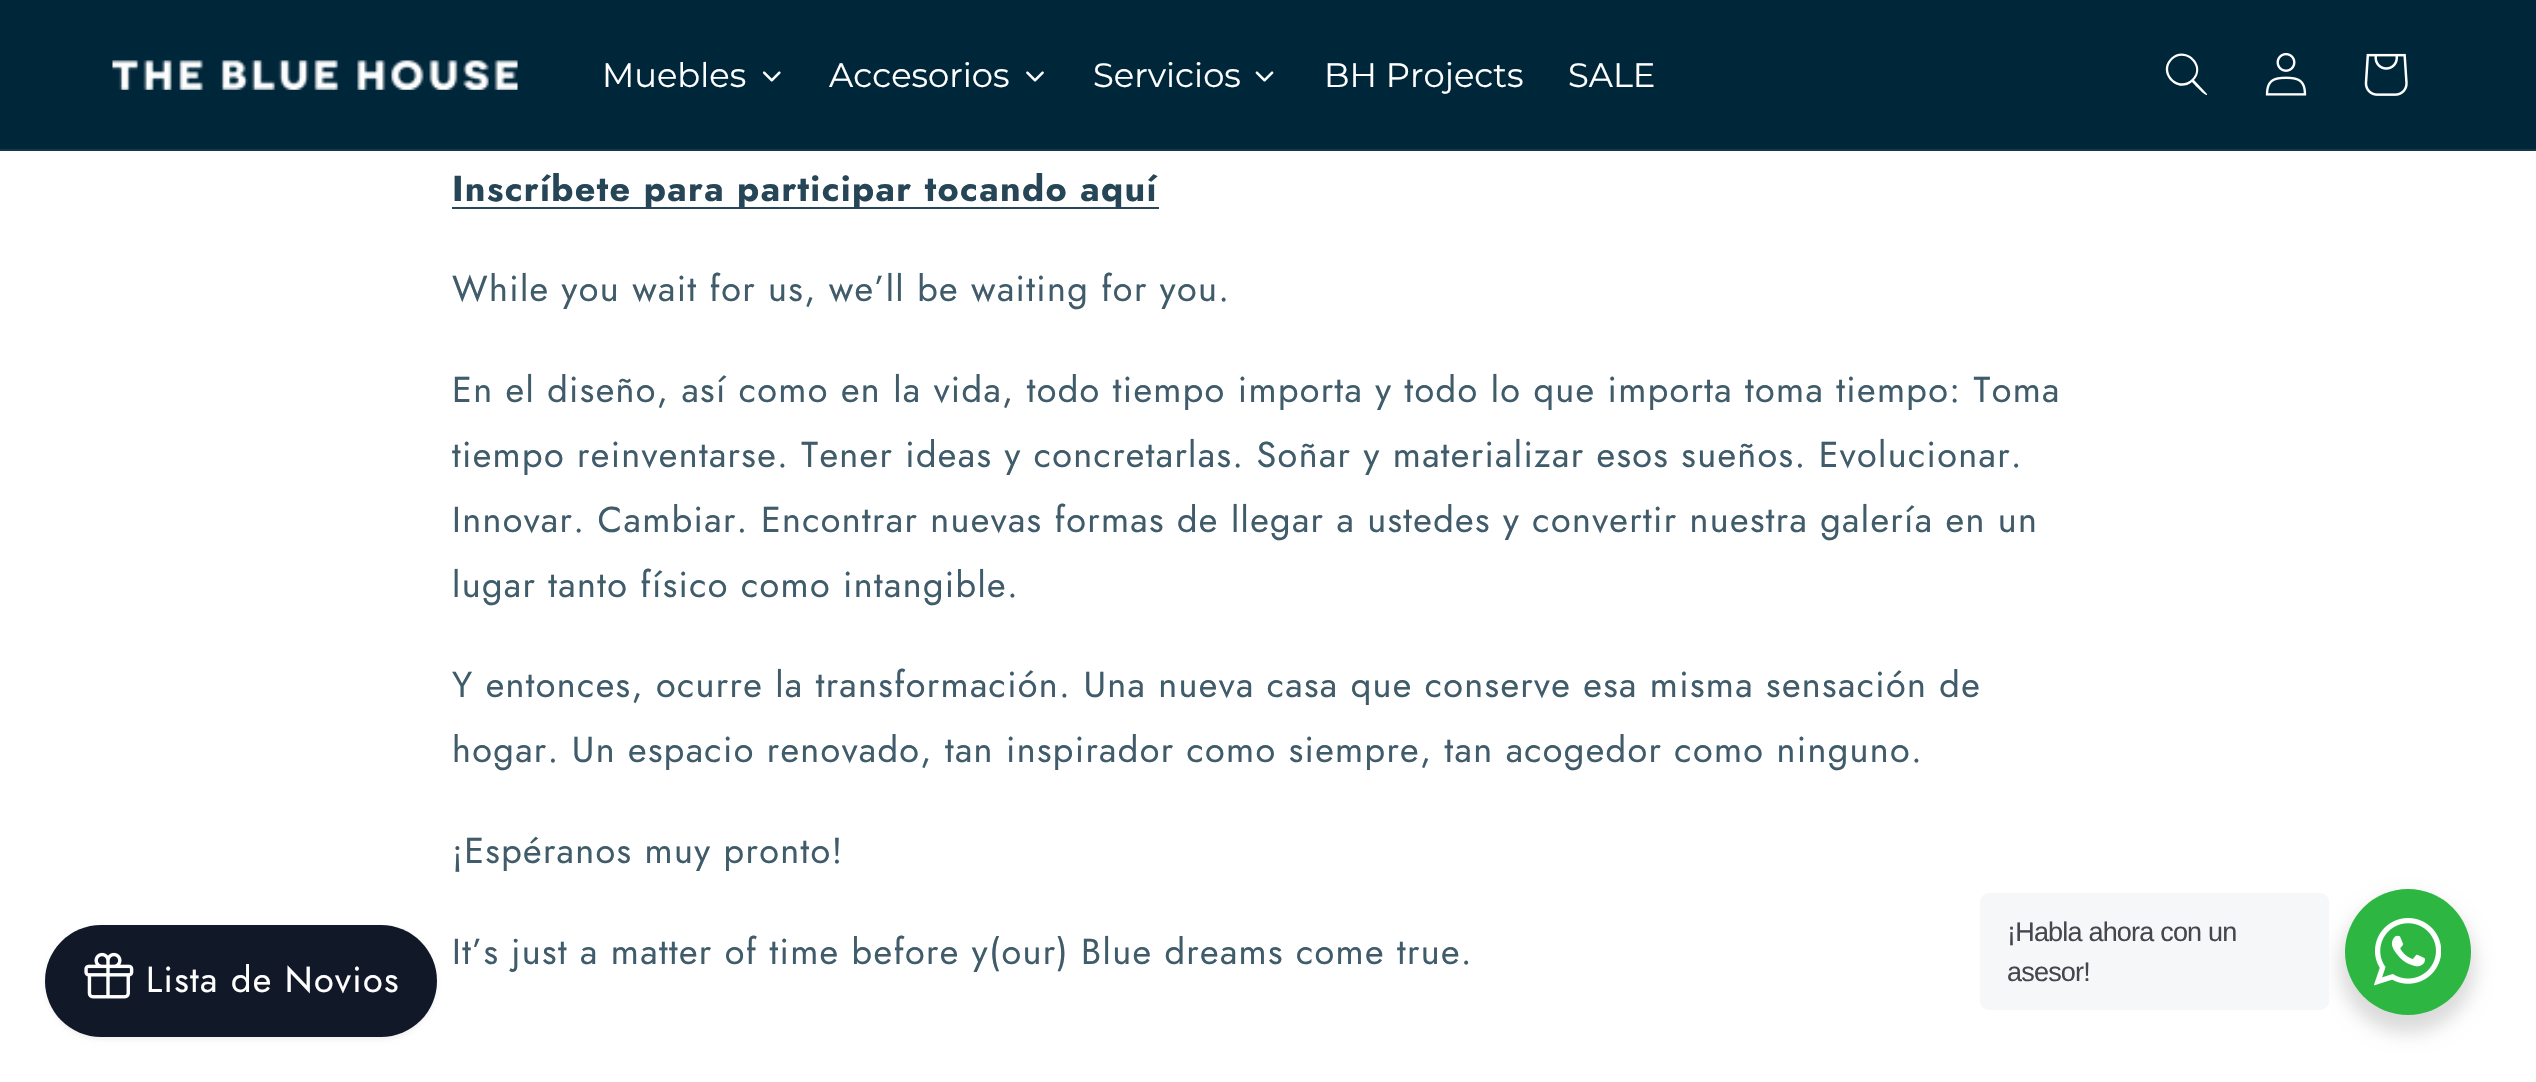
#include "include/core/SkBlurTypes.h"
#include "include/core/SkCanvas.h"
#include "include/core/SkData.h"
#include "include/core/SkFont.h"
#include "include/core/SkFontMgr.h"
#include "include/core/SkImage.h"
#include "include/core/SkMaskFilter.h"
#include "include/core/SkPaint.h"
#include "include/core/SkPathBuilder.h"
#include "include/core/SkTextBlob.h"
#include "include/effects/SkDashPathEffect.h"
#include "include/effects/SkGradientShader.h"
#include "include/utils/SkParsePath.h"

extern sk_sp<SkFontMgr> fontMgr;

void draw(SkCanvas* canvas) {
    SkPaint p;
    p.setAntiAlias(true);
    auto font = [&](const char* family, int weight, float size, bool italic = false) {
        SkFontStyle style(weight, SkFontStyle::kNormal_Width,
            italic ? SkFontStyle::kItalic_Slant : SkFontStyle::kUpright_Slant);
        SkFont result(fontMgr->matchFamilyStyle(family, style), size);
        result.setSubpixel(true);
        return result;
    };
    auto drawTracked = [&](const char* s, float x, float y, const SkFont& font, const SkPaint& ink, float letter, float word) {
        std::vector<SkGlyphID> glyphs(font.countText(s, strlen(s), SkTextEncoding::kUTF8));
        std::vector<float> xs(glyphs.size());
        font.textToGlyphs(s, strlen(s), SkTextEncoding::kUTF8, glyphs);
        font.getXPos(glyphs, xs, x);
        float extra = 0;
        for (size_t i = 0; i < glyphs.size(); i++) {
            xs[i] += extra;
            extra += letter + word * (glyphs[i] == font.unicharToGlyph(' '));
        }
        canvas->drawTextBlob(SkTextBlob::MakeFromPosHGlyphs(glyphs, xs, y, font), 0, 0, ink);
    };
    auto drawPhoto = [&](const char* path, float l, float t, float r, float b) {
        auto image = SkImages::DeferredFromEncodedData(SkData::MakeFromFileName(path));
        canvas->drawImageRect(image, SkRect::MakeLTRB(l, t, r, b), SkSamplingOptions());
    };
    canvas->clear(0xFFFFFFFF);
    p.setColor(0xFF00263A);
    canvas->drawRect(SkRect::MakeLTRB(0, 0, 2536, 149), p);
    p.setColor(0xFF14374A);
    canvas->drawRect(SkRect::MakeLTRB(0, 149, 2536, 151), p);
    drawPhoto("media/1.png", 112, 60, 518, 90);
    auto font1 = font("Montserrat", 100, 33.75f);
    p.setColor(0xFFFFFFFF);
    canvas->drawString("Muebles", 602, 87, font1, p);
    drawPhoto("media/2.png", 762, 71, 781, 82);
    canvas->drawString("Accesorios", 829, 87, font1, p);
    drawPhoto("media/3.png", 1026, 71, 1044, 82);
    canvas->drawString("Servicios", 1093, 87, font1, p);
    drawPhoto("media/4.png", 1255, 71, 1274, 82);
    canvas->drawString("BH Projects", 1324, 87, font1, p);
    canvas->drawString("SALE", 1568, 87, font1, p);
    canvas->drawPath(SkPathBuilder(SkPathFillType::kEvenOdd).moveTo(2192, 79).cubicTo(2179, 92, 2160, 73, 2172, 60).cubicTo(2185, 47, 2205, 67, 2192, 79).close().moveTo(2192, 82).cubicTo(2177, 95, 2156, 72, 2171, 58).cubicTo(2185, 44, 2208, 65, 2194, 80).lineTo(2207, 94).lineTo(2207, 95).cubicTo(2205, 96, 2194, 84, 2192, 82).close().detach(), p);
    drawPhoto("media/5.png", 2265, 52, 2307, 96);
    drawPhoto("media/6.png", 2364, 53, 2408, 96);
    p.setColor(0x0D000000);
    p.setMaskFilter(SkMaskFilter::MakeBlur(kNormal_SkBlurStyle, 2));
    canvas->drawRoundRect(SkRect::MakeLTRB(45, 927, 437, 1040), 56.5f, 56.5f, p);
    p.setMaskFilter(nullptr);
    p.setColor(0xFF111827);
    canvas->drawRoundRect(SkRect::MakeLTRB(45, 925, 437, 1037), 56, 56, p);
    drawPhoto("media/7.png", 84, 952, 134, 999);
    auto font2 = font("Jost", 400, 36);
    p.setColor(0xFFFFFFFF);
    drawTracked("Lista de Novios", 146, 992, font2, p, 1.35f, 0);
    p.setColor(0xFF264758);
    canvas->drawRect(SkRect::MakeLTRB(452, 207, 1159, 209), p);
    auto font3 = font("Jost", 700, 36);
    p.setColor(0xFF264657);
    drawTracked("Inscríbete para participar tocando aquí", 452, 201, font3, p, 1.35f, 0);
    p.setColor(0xFF405C6B);
    {
        const struct { const char* s; float x, y; } items[] = {
            {"While you wait for us, we’ll be waiting for you.", 452, 301},
            {"En el diseño, así como en la vida, todo tiempo importa y todo lo que importa toma tiempo: Toma", 452, 402},
            {"tiempo reinventarse. Tener ideas y concretarlas. Soñar y materializar esos sueños. Evolucionar.", 452, 467},
            {"Innovar. Cambiar. Encontrar nuevas formas de llegar a ustedes y convertir nuestra galería en un", 452, 532},
            {"lugar tanto físico como intangible.", 452, 597},
            {"Y entonces, ocurre la transformación. Una nueva casa que conserve esa misma sensación de", 452, 697},
            {"hogar. Un espacio renovado, tan inspirador como siempre, tan acogedor como ninguno.", 452, 762},
            {"¡Espéranos muy pronto!", 452, 863},
            {"It’s just a matter of time before y(our) Blue dreams come true.", 452, 964},
        };
        for (auto [s, x, y] : items) {
            drawTracked(s, x, y, font2, p, 1.35f, 0);
        }
    }
    p.setColor(0x24000000);
    p.setMaskFilter(SkMaskFilter::MakeBlur(kNormal_SkBlurStyle, 9));
    canvas->drawRoundRect(SkRect::MakeLTRB(2340, 898, 2475, 1033), 67.5f, 67.5f, p);
    p.setMaskFilter(nullptr);
    p.setColor(0xFFF5F7F9);
    canvas->drawRoundRect(SkRect::MakeLTRB(1980, 893, 2329, 1010), 9, 9, p);
    auto font4 = font("Liberation Sans", 400, 27);
    p.setColor(0xFF43474E);
    drawTracked("¡Habla ahora con un", 2007, 941, font4, p, -0.8f, 0);
    drawTracked("asesor!", 2007, 981, font4, p, -0.8f, 0);
    p.setColor(0xFF2DB742);
    canvas->drawCircle(2408, 952, 63, p);
    drawPhoto("media/8.png", 2374, 918, 2441, 986);
}
